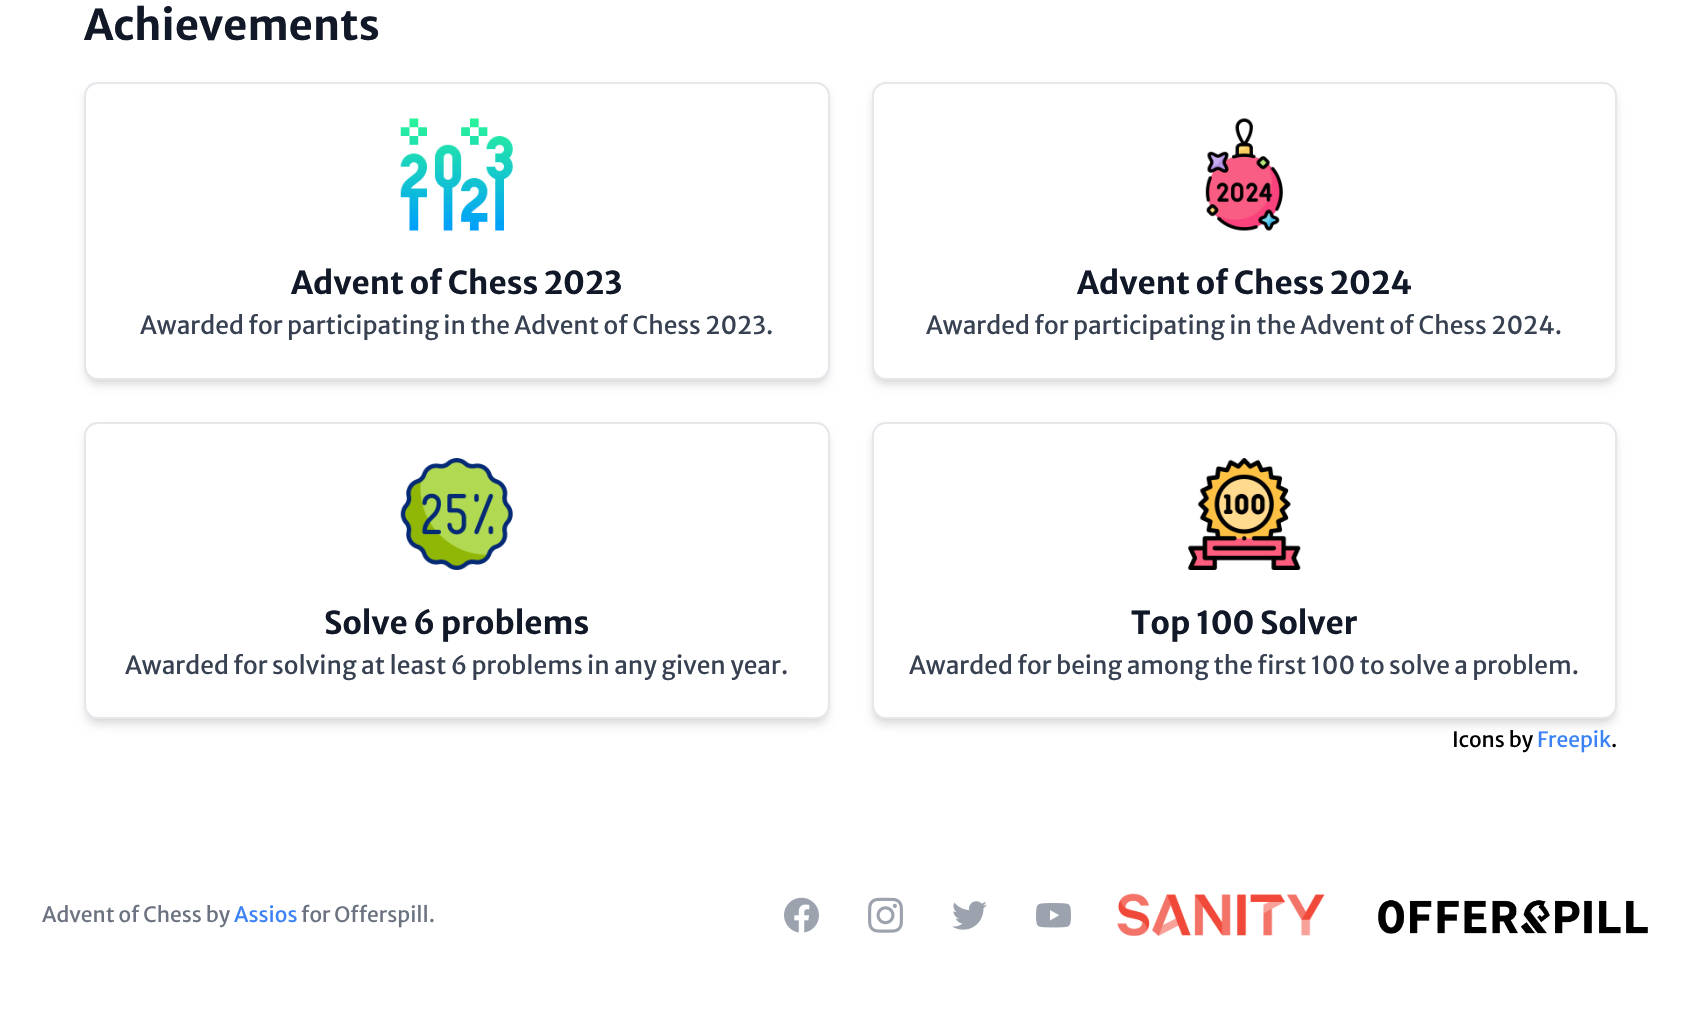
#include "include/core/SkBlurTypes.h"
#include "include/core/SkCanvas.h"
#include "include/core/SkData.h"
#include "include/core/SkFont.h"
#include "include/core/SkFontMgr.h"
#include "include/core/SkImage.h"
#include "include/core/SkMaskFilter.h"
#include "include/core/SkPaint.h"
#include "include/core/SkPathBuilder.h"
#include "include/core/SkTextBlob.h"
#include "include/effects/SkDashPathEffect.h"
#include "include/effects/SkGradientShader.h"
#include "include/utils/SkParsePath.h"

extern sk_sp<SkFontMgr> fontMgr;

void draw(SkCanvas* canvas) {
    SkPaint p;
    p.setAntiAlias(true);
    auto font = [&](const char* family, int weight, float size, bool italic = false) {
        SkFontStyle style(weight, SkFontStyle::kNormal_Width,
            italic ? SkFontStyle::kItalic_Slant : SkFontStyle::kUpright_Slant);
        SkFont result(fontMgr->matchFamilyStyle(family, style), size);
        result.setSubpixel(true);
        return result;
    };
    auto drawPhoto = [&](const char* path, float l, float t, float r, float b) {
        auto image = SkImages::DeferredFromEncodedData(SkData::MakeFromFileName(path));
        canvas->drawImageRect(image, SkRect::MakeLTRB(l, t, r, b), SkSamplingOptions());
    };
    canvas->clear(0xFFFFFFFF);
    auto font1 = font("Merriweather Sans", 700, 42);
    p.setColor(0xFF111827);
    canvas->drawString("Achievements", 84, 40, font1, p);
    p.setColor(0x1A000000);
    p.setMaskFilter(SkMaskFilter::MakeBlur(kNormal_SkBlurStyle, 3.5f));
    canvas->drawRoundRect(SkRect::MakeLTRB(88, 89, 826, 380), 11, 11, p);
    p.setMaskFilter(nullptr);
    p.setMaskFilter(SkMaskFilter::MakeBlur(kNormal_SkBlurStyle, 5));
    canvas->drawRoundRect(SkRect::MakeLTRB(86, 91, 828, 385), 12, 12, p);
    p.setMaskFilter(nullptr);
    p.setColor(0xFFFFFFFF);
    canvas->drawRoundRect(SkRect::MakeLTRB(85, 83, 829, 379), 13, 13, p);
    p.setStyle(SkPaint::kStroke_Style);
    p.setStrokeWidth(2);
    p.setColor(0xFFE5E7EB);
    canvas->drawRoundRect(SkRect::MakeLTRB(85, 83, 829, 379), 13, 13, p);
    drawPhoto("media/1.png", 400, 118, 513, 231);
    auto font2 = font("Merriweather Sans", 700, 31.5f);
    p.setStyle(SkPaint::kFill_Style);
    p.setColor(0xFF111827);
    canvas->drawString("Advent of Chess 2023", 291, 294, font2, p);
    auto font3 = font("Merriweather Sans", 400, 24.5f);
    p.setColor(0xFF374151);
    canvas->drawString("Awarded for participating in the Advent of Chess 2023.", 140, 334, font3, p);
    p.setColor(0x1A000000);
    p.setMaskFilter(SkMaskFilter::MakeBlur(kNormal_SkBlurStyle, 3.5f));
    canvas->drawRoundRect(SkRect::MakeLTRB(875, 89, 1614, 380), 11, 11, p);
    p.setMaskFilter(nullptr);
    p.setMaskFilter(SkMaskFilter::MakeBlur(kNormal_SkBlurStyle, 5));
    canvas->drawRoundRect(SkRect::MakeLTRB(873, 91, 1615, 385), 12, 12, p);
    p.setMaskFilter(nullptr);
    p.setColor(0xFFFFFFFF);
    canvas->drawRoundRect(SkRect::MakeLTRB(873, 83, 1616, 379), 13, 13, p);
    p.setStyle(SkPaint::kStroke_Style);
    p.setColor(0xFFE5E7EB);
    canvas->drawRoundRect(SkRect::MakeLTRB(873, 83, 1616, 379), 13, 13, p);
    drawPhoto("media/2.png", 1205, 118, 1283, 231);
    p.setStyle(SkPaint::kFill_Style);
    p.setColor(0xFF111827);
    canvas->drawString("Advent of Chess 2024", 1077, 294, font2, p);
    p.setColor(0xFF374151);
    canvas->drawString("Awarded for participating in the Advent of Chess 2024.", 926, 334, font3, p);
    p.setColor(0x1A000000);
    p.setMaskFilter(SkMaskFilter::MakeBlur(kNormal_SkBlurStyle, 3.5f));
    canvas->drawRoundRect(SkRect::MakeLTRB(88, 429, 826, 719), 11, 11, p);
    p.setMaskFilter(nullptr);
    p.setMaskFilter(SkMaskFilter::MakeBlur(kNormal_SkBlurStyle, 5));
    canvas->drawRoundRect(SkRect::MakeLTRB(86, 431, 828, 725), 12, 12, p);
    p.setMaskFilter(nullptr);
    p.setColor(0xFFFFFFFF);
    canvas->drawRoundRect(SkRect::MakeLTRB(85, 423, 829, 718), 13, 13, p);
    p.setStyle(SkPaint::kStroke_Style);
    p.setColor(0xFFE5E7EB);
    canvas->drawRoundRect(SkRect::MakeLTRB(85, 423, 829, 718), 13, 13, p);
    drawPhoto("media/3.png", 400, 458, 513, 570);
    p.setStyle(SkPaint::kFill_Style);
    p.setColor(0xFF111827);
    canvas->drawString("Solve 6 problems", 324, 634, font2, p);
    p.setColor(0xFF374151);
    canvas->drawString("Awarded for solving at least 6 problems in any given year.", 125, 674, font3, p);
    p.setColor(0x1A000000);
    p.setMaskFilter(SkMaskFilter::MakeBlur(kNormal_SkBlurStyle, 3.5f));
    canvas->drawRoundRect(SkRect::MakeLTRB(875, 429, 1614, 719), 11, 11, p);
    p.setMaskFilter(nullptr);
    p.setMaskFilter(SkMaskFilter::MakeBlur(kNormal_SkBlurStyle, 5));
    canvas->drawRoundRect(SkRect::MakeLTRB(873, 431, 1615, 725), 12, 12, p);
    p.setMaskFilter(nullptr);
    p.setColor(0xFFFFFFFF);
    canvas->drawRoundRect(SkRect::MakeLTRB(873, 423, 1616, 718), 13, 13, p);
    p.setStyle(SkPaint::kStroke_Style);
    p.setColor(0xFFE5E7EB);
    canvas->drawRoundRect(SkRect::MakeLTRB(873, 423, 1616, 718), 13, 13, p);
    drawPhoto("media/4.png", 1188, 458, 1301, 570);
    p.setStyle(SkPaint::kFill_Style);
    p.setColor(0xFF111827);
    canvas->drawString("Top 100 Solver", 1131, 634, font2, p);
    p.setColor(0xFF374151);
    canvas->drawString("Awarded for being among the first 100 to solve a problem.", 909, 674, font3, p);
    auto font4 = font("Merriweather Sans", 400, 21);
    p.setColor(0xFF000000);
    canvas->drawString("Icons by", 1452, 747, font4, p);
    p.setColor(0xFF3B82F6);
    canvas->drawString("Freepik", 1537, 747, font4, p);
    p.setColor(0xFF000000);
    canvas->drawString(".", 1611, 747, font4, p);
    p.setColor(0xFF6B7280);
    canvas->drawString("Advent of Chess by", 42, 922, font4, p);
    p.setColor(0xFF3B82F6);
    canvas->drawString("Assios", 234, 922, font4, p);
    p.setColor(0xFF6B7280);
    canvas->drawString("for Offerspill.", 301, 922, font4, p);
    drawPhoto("media/5.png", 784, 897, 819, 933);
    drawPhoto("media/6.png", 868, 897, 903, 933);
    drawPhoto("media/7.png", 952, 901, 987, 930);
    drawPhoto("media/8.png", 1036, 903, 1071, 928);
    drawPhoto("media/9.png", 1117, 893, 1325, 936);
    drawPhoto("media/10.png", 1378, 900, 1648, 934);
}
